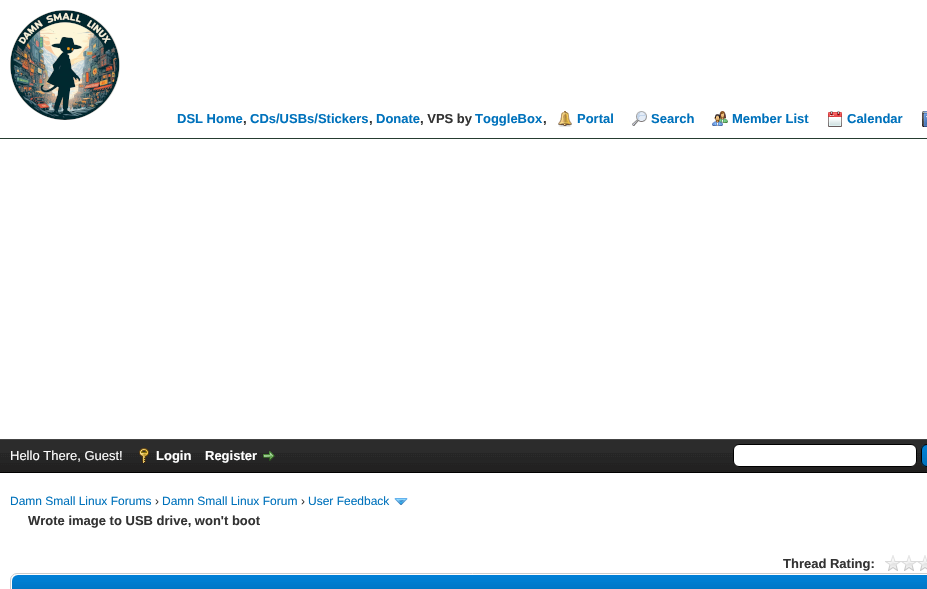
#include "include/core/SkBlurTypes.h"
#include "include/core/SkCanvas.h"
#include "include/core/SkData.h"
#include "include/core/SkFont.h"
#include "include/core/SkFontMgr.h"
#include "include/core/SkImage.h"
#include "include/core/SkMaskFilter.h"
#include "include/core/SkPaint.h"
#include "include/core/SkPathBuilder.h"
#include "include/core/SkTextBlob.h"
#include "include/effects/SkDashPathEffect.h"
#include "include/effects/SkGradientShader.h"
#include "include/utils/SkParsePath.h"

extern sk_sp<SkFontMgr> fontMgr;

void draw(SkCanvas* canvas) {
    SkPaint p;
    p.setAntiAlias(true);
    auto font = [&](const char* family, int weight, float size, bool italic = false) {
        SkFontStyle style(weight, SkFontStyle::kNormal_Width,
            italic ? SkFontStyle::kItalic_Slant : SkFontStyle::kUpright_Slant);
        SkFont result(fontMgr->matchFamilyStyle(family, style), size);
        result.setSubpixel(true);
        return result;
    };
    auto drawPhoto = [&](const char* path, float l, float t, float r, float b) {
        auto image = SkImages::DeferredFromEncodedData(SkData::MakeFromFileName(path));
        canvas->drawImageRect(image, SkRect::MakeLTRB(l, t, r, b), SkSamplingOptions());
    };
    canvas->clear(0xFFFFFFFF);
    p.setColor(0xFF263C30);
    canvas->drawRect(SkRect::MakeLTRB(0, 138, 927, 139), p);
    drawPhoto("media/1.png", 10, 10, 120, 120);
    auto font1 = font("Liberation Sans", 700, 13);
    p.setColor(0xFF0072BC);
    canvas->drawString("DSL Home", 177, 123, font1, p);
    p.setColor(0xFF333333);
    canvas->drawString(",", 243, 123, font1, p);
    p.setColor(0xFF0072BC);
    canvas->drawString("CDs/USBs/Stickers", 250, 123, font1, p);
    p.setColor(0xFF333333);
    canvas->drawString(",", 369, 123, font1, p);
    p.setColor(0xFF0072BC);
    canvas->drawString("Donate", 376, 123, font1, p);
    p.setColor(0xFF333333);
    canvas->drawString(", VPS by", 420, 123, font1, p);
    p.setColor(0xFF0072BC);
    canvas->drawString("ToggleBox", 475, 123, font1, p);
    p.setColor(0xFF333333);
    canvas->drawString(",", 543, 123, font1, p);
    drawPhoto("media/2.png", 558, 111, 572, 127);
    p.setColor(0xFF0072BC);
    canvas->drawString("Portal", 577, 123, font1, p);
    drawPhoto("media/3.png", 632, 111, 647, 126);
    canvas->drawString("Search", 651, 123, font1, p);
    drawPhoto("media/4.png", 712, 111, 728, 126);
    canvas->drawString("Member List", 732, 123, font1, p);
    drawPhoto("media/5.png", 828, 111, 842, 127);
    canvas->drawString("Calendar", 847, 123, font1, p);
    drawPhoto("media/6.png", 922, 111, 927, 127);
    drawPhoto("media/7.png", 0, 440, 927, 472);
    p.setColor(0xFF444444);
    canvas->drawRect(SkRect::MakeLTRB(0, 439, 927, 440), p);
    p.setColor(0xFF000000);
    canvas->drawRect(SkRect::MakeLTRB(0, 472, 927, 473), p);
    auto font2 = font("Liberation Sans", 400, 13);
    p.setColor(0xFFFFFFFF);
    canvas->drawString("Hello There, Guest!", 10, 460, font2, p);
    drawPhoto("media/8.png", 139, 448, 149, 463);
    canvas->drawString("Login", 156, 460, font1, p);
    canvas->drawString("Register", 205, 460, font1, p);
    drawPhoto("media/9.png", 263, 451, 275, 461);
    canvas->drawRoundRect(SkRect::MakeLTRB(733.5f, 444.5f, 916.5f, 466.5f), 5.5f, 5.5f, p);
    p.setStyle(SkPaint::kStroke_Style);
    p.setStrokeWidth(1);
    p.setColor(0xFF000000);
    canvas->drawRoundRect(SkRect::MakeLTRB(733.5f, 444.5f, 916.5f, 466.5f), 5.5f, 5.5f, p);
    drawPhoto("media/10.png", 921, 445, 927, 467);
    canvas->drawRoundRect(SkRect::MakeLTRB(921.5f, 444.5f, 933.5f, 466.5f), 5.5f, 5.5f, p);
    auto font3 = font("Liberation Sans", 400, 12);
    p.setStyle(SkPaint::kFill_Style);
    p.setColor(0xFF0072BC);
    canvas->drawString("Damn Small Linux Forums", 10, 505, font3, p);
    p.setColor(0xFF333333);
    canvas->drawString("›", 155, 505, font3, p);
    p.setColor(0xFF0072BC);
    canvas->drawString("Damn Small Linux Forum", 162, 505, font3, p);
    p.setColor(0xFF333333);
    canvas->drawString("›", 301, 505, font3, p);
    p.setColor(0xFF0072BC);
    canvas->drawString("User Feedback", 308, 505, font3, p);
    drawPhoto("media/11.png", 394, 498, 408, 505);
    p.setColor(0xFF333333);
    canvas->drawString("Wrote image to USB drive, won't boot", 28, 525, font1, p);
    canvas->drawString("Thread Rating:", 783, 568, font1, p);
    drawPhoto("media/12.png", 885, 555, 927, 571);
    p.setStyle(SkPaint::kStroke_Style);
    p.setColor(0xFFCCCCCC);
    canvas->drawRoundRect(SkRect::MakeLTRB(10.5f, 573.5f, 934.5f, 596.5f), 6.5f, 6.5f, p);
    drawPhoto("media/13.png", 12, 575, 927, 589);
}
